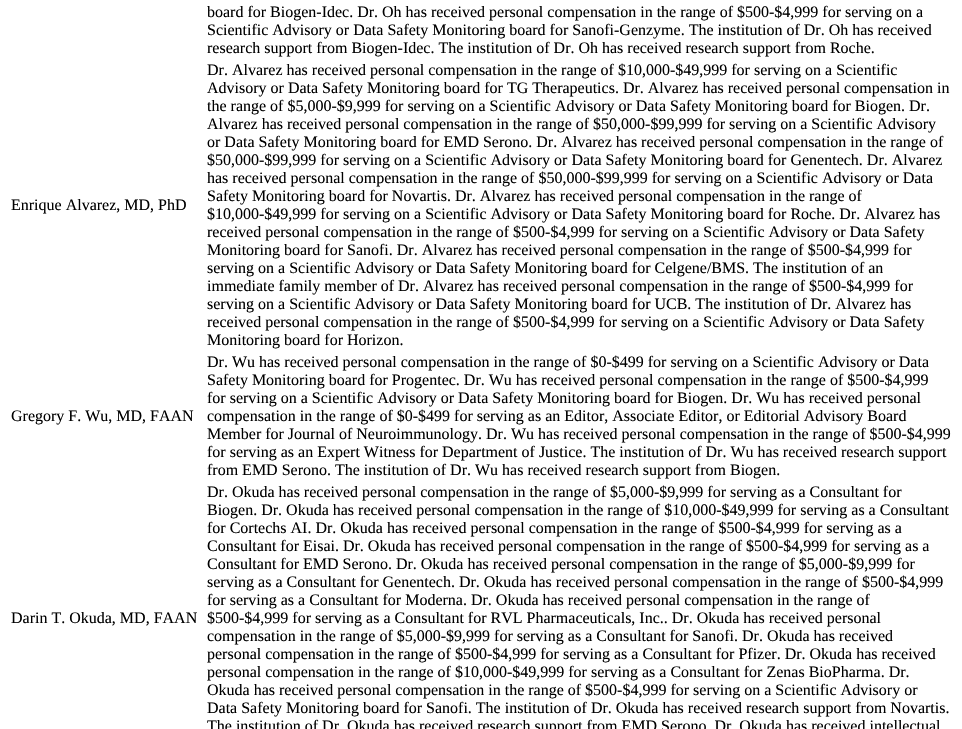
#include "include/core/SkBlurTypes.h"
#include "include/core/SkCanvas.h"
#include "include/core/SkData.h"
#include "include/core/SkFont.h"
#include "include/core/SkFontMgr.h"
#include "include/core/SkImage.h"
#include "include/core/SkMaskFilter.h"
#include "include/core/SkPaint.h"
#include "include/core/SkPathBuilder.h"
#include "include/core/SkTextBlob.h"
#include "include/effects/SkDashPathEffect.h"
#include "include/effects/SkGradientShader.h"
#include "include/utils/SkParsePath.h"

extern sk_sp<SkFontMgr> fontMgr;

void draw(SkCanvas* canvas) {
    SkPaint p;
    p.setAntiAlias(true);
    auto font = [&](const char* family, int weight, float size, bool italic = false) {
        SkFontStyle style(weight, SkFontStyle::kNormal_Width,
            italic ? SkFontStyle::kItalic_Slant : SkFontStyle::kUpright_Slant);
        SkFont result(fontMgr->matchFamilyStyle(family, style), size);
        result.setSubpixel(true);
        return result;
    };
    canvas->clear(0xFFFFFFFF);
    auto font1 = font("Liberation Serif", 400, 16);
    p.setColor(0xFF000000);
    {
        const struct { const char* s; float x, y; } items[] = {
            {"board for Biogen-Idec. Dr. Oh has received personal compensation in the range of $500-$4,999 for serving on a", 207, 17},
            {"Scientific Advisory or Data Safety Monitoring board for Sanofi-Genzyme. The institution of Dr. Oh has received", 207, 35},
            {"research support from Biogen-Idec. The institution of Dr. Oh has received research support from Roche.", 207, 53},
            {"Enrique Alvarez, MD, PhD", 11, 210},
            {"Dr. Alvarez has received personal compensation in the range of $10,000-$49,999 for serving on a Scientific", 207, 75},
            {"Advisory or Data Safety Monitoring board for TG Therapeutics. Dr. Alvarez has received personal compensation in", 207, 93},
            {"the range of $5,000-$9,999 for serving on a Scientific Advisory or Data Safety Monitoring board for Biogen. Dr.", 207, 111},
            {"Alvarez has received personal compensation in the range of $50,000-$99,999 for serving on a Scientific Advisory", 207, 129},
            {"or Data Safety Monitoring board for EMD Serono. Dr. Alvarez has received personal compensation in the range of", 207, 147},
            {"$50,000-$99,999 for serving on a Scientific Advisory or Data Safety Monitoring board for Genentech. Dr. Alvarez", 207, 165},
            {"has received personal compensation in the range of $50,000-$99,999 for serving on a Scientific Advisory or Data", 207, 183},
            {"Safety Monitoring board for Novartis. Dr. Alvarez has received personal compensation in the range of", 207, 201},
            {"$10,000-$49,999 for serving on a Scientific Advisory or Data Safety Monitoring board for Roche. Dr. Alvarez has", 207, 219},
            {"received personal compensation in the range of $500-$4,999 for serving on a Scientific Advisory or Data Safety", 207, 237},
            {"Monitoring board for Sanofi. Dr. Alvarez has received personal compensation in the range of $500-$4,999 for", 207, 255},
            {"serving on a Scientific Advisory or Data Safety Monitoring board for Celgene/BMS. The institution of an", 207, 273},
            {"immediate family member of Dr. Alvarez has received personal compensation in the range of $500-$4,999 for", 207, 291},
            {"serving on a Scientific Advisory or Data Safety Monitoring board for UCB. The institution of Dr. Alvarez has", 207, 309},
            {"received personal compensation in the range of $500-$4,999 for serving on a Scientific Advisory or Data Safety", 207, 327},
            {"Monitoring board for Horizon.", 207, 345},
            {"Gregory F. Wu, MD, FAAN", 11, 421},
            {"Dr. Wu has received personal compensation in the range of $0-$499 for serving on a Scientific Advisory or Data", 207, 367},
            {"Safety Monitoring board for Progentec. Dr. Wu has received personal compensation in the range of $500-$4,999", 207, 385},
            {"for serving on a Scientific Advisory or Data Safety Monitoring board for Biogen. Dr. Wu has received personal", 207, 403},
            {"compensation in the range of $0-$499 for serving as an Editor, Associate Editor, or Editorial Advisory Board", 207, 421},
            {"Member for Journal of Neuroimmunology. Dr. Wu has received personal compensation in the range of $500-$4,999", 207, 439},
            {"for serving as an Expert Witness for Department of Justice. The institution of Dr. Wu has received research support", 207, 457},
            {"from EMD Serono. The institution of Dr. Wu has received research support from Biogen.", 207, 475},
            {"Darin T. Okuda, MD, FAAN", 11, 623},
            {"Dr. Okuda has received personal compensation in the range of $5,000-$9,999 for serving as a Consultant for", 207, 497},
            {"Biogen. Dr. Okuda has received personal compensation in the range of $10,000-$49,999 for serving as a Consultant", 207, 515},
            {"for Cortechs AI. Dr. Okuda has received personal compensation in the range of $500-$4,999 for serving as a", 207, 533},
            {"Consultant for Eisai. Dr. Okuda has received personal compensation in the range of $500-$4,999 for serving as a", 207, 551},
            {"Consultant for EMD Serono. Dr. Okuda has received personal compensation in the range of $5,000-$9,999 for", 207, 569},
            {"serving as a Consultant for Genentech. Dr. Okuda has received personal compensation in the range of $500-$4,999", 207, 587},
            {"for serving as a Consultant for Moderna. Dr. Okuda has received personal compensation in the range of", 207, 605},
            {"$500-$4,999 for serving as a Consultant for RVL Pharmaceuticals, Inc.. Dr. Okuda has received personal", 207, 623},
            {"compensation in the range of $5,000-$9,999 for serving as a Consultant for Sanofi. Dr. Okuda has received", 207, 641},
            {"personal compensation in the range of $500-$4,999 for serving as a Consultant for Pfizer. Dr. Okuda has received", 207, 659},
            {"personal compensation in the range of $10,000-$49,999 for serving as a Consultant for Zenas BioPharma. Dr.", 207, 677},
            {"Okuda has received personal compensation in the range of $500-$4,999 for serving on a Scientific Advisory or", 207, 695},
            {"Data Safety Monitoring board for Sanofi. The institution of Dr. Okuda has received research support from Novartis.", 207, 713},
            {"The institution of Dr. Okuda has received research support from EMD Serono. Dr. Okuda has received intellectual", 207, 731},
        };
        for (auto [s, x, y] : items) {
            canvas->drawString(s, x, y, font1, p);
        }
    }
}
